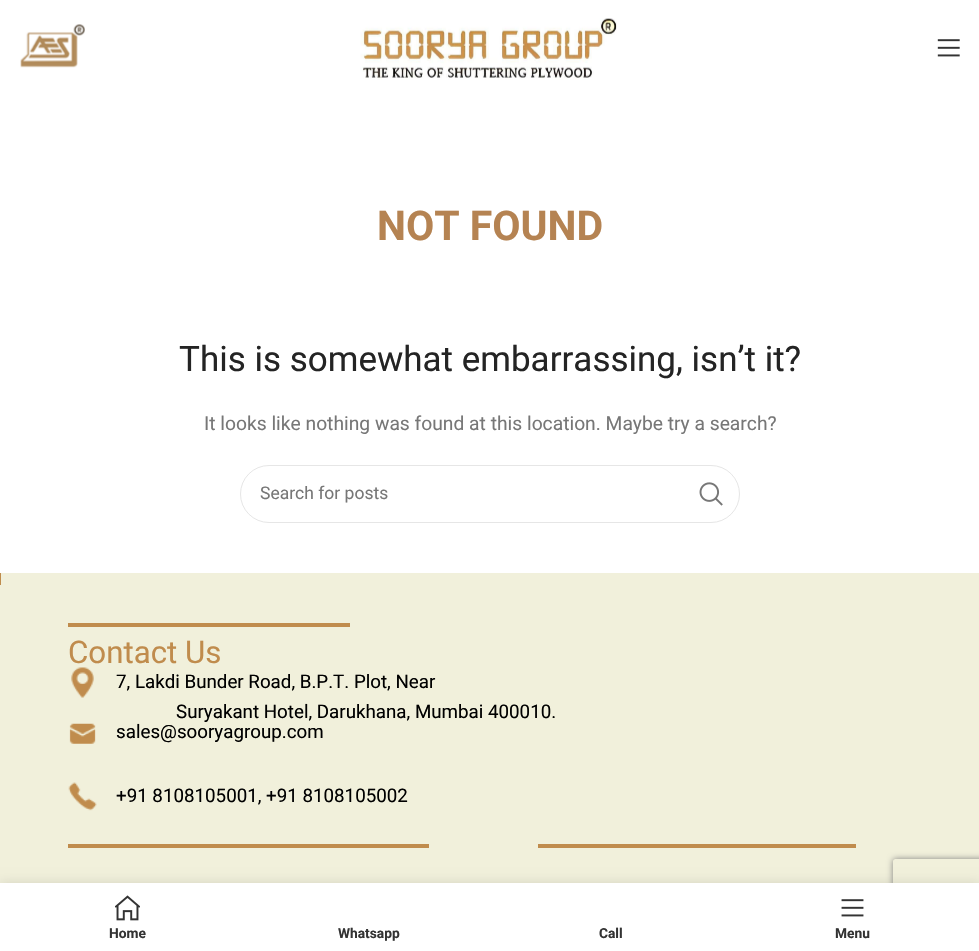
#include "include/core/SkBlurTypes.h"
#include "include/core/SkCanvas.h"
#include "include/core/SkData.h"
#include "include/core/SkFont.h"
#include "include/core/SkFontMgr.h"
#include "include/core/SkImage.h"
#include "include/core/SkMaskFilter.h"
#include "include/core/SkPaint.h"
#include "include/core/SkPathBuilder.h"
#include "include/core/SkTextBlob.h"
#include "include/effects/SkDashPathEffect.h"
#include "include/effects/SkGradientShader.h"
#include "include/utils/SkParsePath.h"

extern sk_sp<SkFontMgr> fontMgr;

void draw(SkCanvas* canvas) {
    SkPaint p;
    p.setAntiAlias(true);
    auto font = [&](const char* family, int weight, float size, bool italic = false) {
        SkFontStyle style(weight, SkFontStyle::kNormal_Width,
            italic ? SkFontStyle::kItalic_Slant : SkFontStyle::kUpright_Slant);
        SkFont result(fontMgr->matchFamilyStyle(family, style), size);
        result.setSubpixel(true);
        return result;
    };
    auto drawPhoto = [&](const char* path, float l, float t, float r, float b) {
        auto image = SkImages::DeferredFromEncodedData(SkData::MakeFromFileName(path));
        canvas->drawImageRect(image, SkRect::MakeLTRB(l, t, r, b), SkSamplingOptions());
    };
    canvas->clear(0xFFFFFFFF);
    drawPhoto("media/1.png", 20, 24, 85, 68);
    drawPhoto("media/2.png", 360, 18, 617, 80);
    drawPhoto("media/3.png", 937, 39, 960, 57);
    auto font1 = font("Roboto", 700, 41);
    p.setColor(0xFFB58352);
    canvas->drawString("NOT FOUND", 377, 240, font1, p);
    auto font2 = font("Roboto", 400, 35);
    p.setColor(0xFF242424);
    canvas->drawString("This is somewhat embarrassing, isn’t it?", 179, 371, font2, p);
    auto font3 = font("Roboto", 400, 19.25f);
    p.setColor(0xFF777777);
    canvas->drawString("It looks like nothing was found at this location. Maybe try a search?", 204, 430, font3, p);
    p.setStyle(SkPaint::kStroke_Style);
    p.setStrokeWidth(1);
    p.setColor(0xFFE6E6E6);
    canvas->drawRoundRect(SkRect::MakeLTRB(240.5f, 465.5f, 739.5f, 522.5f), 28.5f, 28.5f, p);
    auto font4 = font("Roboto", 400, 17.5f);
    p.setStyle(SkPaint::kFill_Style);
    p.setColor(0xFF777777);
    canvas->drawString("Search for posts", 260, 499, font4, p);
    drawPhoto("media/4.png", 699, 482, 723, 506);
    {
        const struct { float l, t, r, b; SkColor color; } items[] = {
            {0, 573, 1, 585, 0xFFBF8C4D},
            {1, 573, 979, 585, 0xFFF1F0DB},
            {0, 585, 979, 883, 0xFFF1F0DB},
            {68, 844, 429, 848, 0xFFC08C4D},
            {538, 844, 856, 848, 0xFFC08C4D},
            {68, 623, 350, 627, 0xFFC08C4D},
        };
        for (auto [l, t, r, b, color] : items) {
            p.setColor(color);
            canvas->drawRect(SkRect::MakeLTRB(l, t, r, b), p);
        }
    }
    auto font5 = font("Roboto", 400, 31.25f);
    canvas->drawString("Contact Us", 68, 663, font5, p);
    drawPhoto("media/5.png", 71, 667, 94, 698);
    auto font6 = font("Roboto", 400, 18.75f);
    p.setColor(0xFF000000);
    canvas->drawString("7, Lakdi Bunder Road, B.P.T. Plot, Near", 116, 688, font6, p);
    canvas->drawString("Suryakant Hotel, Darukhana, Mumbai 400010.", 176, 718, font6, p);
    drawPhoto("media/6.png", 69, 723, 96, 744);
    canvas->drawString("sales@sooryagroup.com", 116, 738, font6, p);
    drawPhoto("media/7.png", 68, 782, 97, 811);
    canvas->drawString("+91 8108105001, +91 8108105002", 116, 802, font6, p);
    p.setColor(0x1F000000);
    p.setMaskFilter(SkMaskFilter::MakeBlur(kNormal_SkBlurStyle, 5.5f));
    canvas->drawRect(SkRect::MakeLTRB(0, 883, 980, 951), p);
    p.setMaskFilter(nullptr);
    canvas->save();
    canvas->clipPath(SkPathBuilder(SkPathFillType::kEvenOdd).moveTo(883, 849).lineTo(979, 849).lineTo(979, 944).lineTo(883, 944).close().moveTo(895.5f, 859).lineTo(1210.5f, 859).cubicTo(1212, 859, 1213, 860, 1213, 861.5f).lineTo(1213, 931.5f).cubicTo(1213, 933, 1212, 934, 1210.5f, 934).lineTo(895.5f, 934).cubicTo(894, 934, 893, 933, 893, 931.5f).lineTo(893, 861.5f).cubicTo(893, 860, 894, 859, 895.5f, 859).close().detach(), true);
    p.setColor(0xFF808080);
    p.setMaskFilter(SkMaskFilter::MakeBlur(kNormal_SkBlurStyle, 3));
    canvas->drawRoundRect(SkRect::MakeLTRB(893, 859, 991, 934), 2.5f, 2.5f, p);
    p.setMaskFilter(nullptr);
    canvas->restore();
    p.setColor(0xFFFFFFFF);
    canvas->drawRect(SkRect::MakeLTRB(0, 883, 979, 951), p);
    drawPhoto("media/8.png", 115, 895, 140, 921);
    auto font7 = font("Roboto", 700, 13.75f);
    p.setColor(0xFF333333);
    {
        const struct { const char* s; float x, y; } items[] = {
            {"Home", 109, 938},
            {"Whatsapp", 338, 938},
            {"Call", 599, 938},
        };
        for (auto [s, x, y] : items) {
            canvas->drawString(s, x, y, font7, p);
        }
    }
    drawPhoto("media/9.png", 841, 899, 864, 917);
    canvas->drawString("Menu", 835, 938, font7, p);
}
